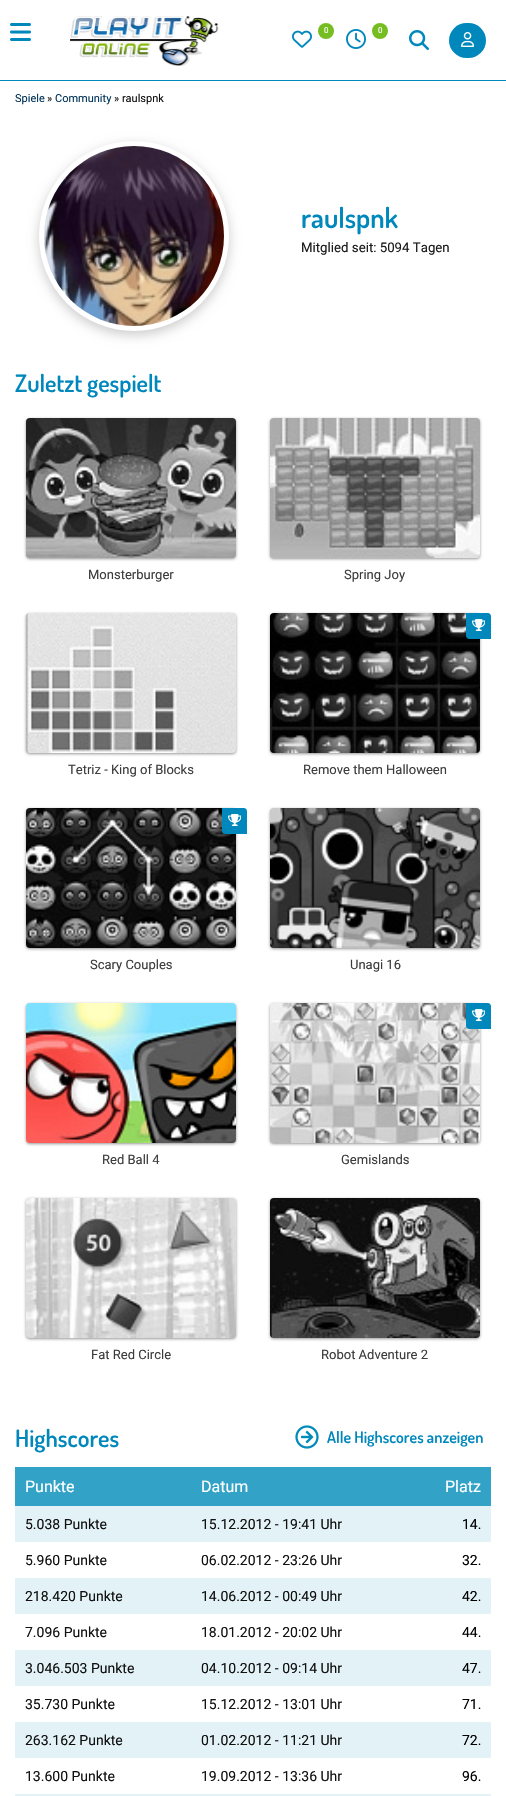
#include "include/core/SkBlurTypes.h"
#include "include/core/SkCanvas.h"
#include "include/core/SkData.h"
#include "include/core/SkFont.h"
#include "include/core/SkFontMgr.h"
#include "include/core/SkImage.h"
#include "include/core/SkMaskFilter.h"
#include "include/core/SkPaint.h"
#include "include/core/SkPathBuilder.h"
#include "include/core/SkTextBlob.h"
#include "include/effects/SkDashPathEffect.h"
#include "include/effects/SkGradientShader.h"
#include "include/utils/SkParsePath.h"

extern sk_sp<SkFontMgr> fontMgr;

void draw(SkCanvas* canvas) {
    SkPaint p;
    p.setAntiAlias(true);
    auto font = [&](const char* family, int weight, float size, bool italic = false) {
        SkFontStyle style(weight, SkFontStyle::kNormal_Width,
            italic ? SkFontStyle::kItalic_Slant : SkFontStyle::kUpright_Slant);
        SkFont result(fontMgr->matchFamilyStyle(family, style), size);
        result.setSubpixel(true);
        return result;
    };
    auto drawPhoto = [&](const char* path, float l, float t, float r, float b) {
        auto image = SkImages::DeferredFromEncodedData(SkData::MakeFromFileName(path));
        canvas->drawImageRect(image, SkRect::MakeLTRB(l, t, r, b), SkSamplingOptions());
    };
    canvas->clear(0xFFFFFFFF);
    p.setColor(0xFF0088BD);
    canvas->drawRect(SkRect::MakeLTRB(0, 80, 506, 81), p);
    drawPhoto("media/1.png", 10, 23, 31, 41);
    drawPhoto("media/2.png", 70, 16, 219, 66);
    drawPhoto("media/3.png", 292, 30, 312, 48);
    p.setColor(0xFF76BD22);
    canvas->drawCircle(326, 31, 8, p);
    auto font1 = font("Roboto", 400, 8);
    p.setColor(0xFFFFFFFF);
    canvas->drawString("0", 324, 33, font1, p);
    drawPhoto("media/4.png", 346, 29, 366, 49);
    p.setColor(0xFF76BD22);
    canvas->drawCircle(380, 31, 8, p);
    p.setColor(0xFFFFFFFF);
    canvas->drawString("0", 378, 33, font1, p);
    drawPhoto("media/5.png", 409, 30, 429, 50);
    p.setColor(0xFF0088BD);
    canvas->drawRoundRect(SkRect::MakeLTRB(449, 23, 486, 58), 17.5f, 17.5f, p);
    drawPhoto("media/6.png", 461, 32, 474, 47);
    auto font2 = font("Roboto", 400, 11);
    p.setColor(0xFF003359);
    canvas->drawString("Spiele", 15, 102, font2, p);
    p.setColor(0xFF111111);
    canvas->drawString("»", 47, 102, font2, p);
    p.setColor(0xFF003359);
    canvas->drawString("Community", 55, 102, font2, p);
    p.setColor(0xFF111111);
    canvas->drawString("» raulspnk", 114, 102, font2, p);
    p.setColor(0x33000000);
    p.setMaskFilter(SkMaskFilter::MakeBlur(kNormal_SkBlurStyle, 6));
    canvas->drawRoundRect(SkRect::MakeLTRB(39, 145, 229, 335), 95, 95, p);
    p.setMaskFilter(nullptr);
    p.setColor(0xFFFFFFFF);
    canvas->drawCircle(134, 236, 95, p);
    drawPhoto("media/7.png", 44, 146, 224, 326);
    auto font3 = font("Dosis", 600, 28);
    p.setColor(0xFF0088BD);
    canvas->drawString("raulspnk", 301, 228, font3, p);
    auto font4 = font("Roboto", 400, 13.25f);
    p.setColor(0xFF1A1A1A);
    canvas->drawString("Mitglied seit: 5094 Tagen", 301, 252, font4, p);
    auto font5 = font("Dosis", 600, 24);
    p.setColor(0xFF0088BD);
    canvas->drawString("Zuletzt gespielt", 15, 392, font5, p);
    p.setColor(0xFF969696);
    p.setMaskFilter(SkMaskFilter::MakeBlur(kNormal_SkBlurStyle, 1.5f));
    canvas->drawRoundRect(SkRect::MakeLTRB(26, 419, 236, 559), 4, 4, p);
    p.setMaskFilter(nullptr);
    drawPhoto("media/8.png", 26, 418, 236, 558);
    auto font6 = font("Roboto", 400, 13);
    p.setColor(0xFF3C3C3C);
    canvas->drawString("Monsterburger", 88, 579, font6, p);
    p.setColor(0xFF969696);
    p.setMaskFilter(SkMaskFilter::MakeBlur(kNormal_SkBlurStyle, 1.5f));
    canvas->drawRoundRect(SkRect::MakeLTRB(270, 419, 480, 559), 4, 4, p);
    p.setMaskFilter(nullptr);
    drawPhoto("media/9.png", 270, 418, 480, 558);
    p.setColor(0xFF3C3C3C);
    canvas->drawString("Spring Joy", 344, 579, font6, p);
    p.setColor(0xFF969696);
    p.setMaskFilter(SkMaskFilter::MakeBlur(kNormal_SkBlurStyle, 1.5f));
    canvas->drawRoundRect(SkRect::MakeLTRB(26, 614, 236, 754), 4, 4, p);
    p.setMaskFilter(nullptr);
    drawPhoto("media/10.png", 26, 613, 236, 753);
    p.setColor(0xFF3C3C3C);
    canvas->drawString("Tetriz - King of Blocks", 68, 774, font6, p);
    p.setColor(0xFF969696);
    p.setMaskFilter(SkMaskFilter::MakeBlur(kNormal_SkBlurStyle, 1.5f));
    canvas->drawRoundRect(SkRect::MakeLTRB(270, 614, 480, 754), 4, 4, p);
    p.setMaskFilter(nullptr);
    drawPhoto("media/11.png", 270, 613, 480, 753);
    p.setColor(0xFF0088BD);
    canvas->drawPath(SkPathBuilder().moveTo(466, 613).lineTo(488, 613).cubicTo(489.5f, 613, 491, 614.5f, 491, 616).lineTo(491, 639).lineTo(469, 639).cubicTo(467.5f, 639, 466, 637.5f, 466, 636).close().detach(), p);
    drawPhoto("media/12.png", 472, 619, 485, 631);
    p.setColor(0xFF3C3C3C);
    canvas->drawString("Remove them Halloween", 303, 774, font6, p);
    p.setColor(0xFF969696);
    p.setMaskFilter(SkMaskFilter::MakeBlur(kNormal_SkBlurStyle, 1.5f));
    canvas->drawRoundRect(SkRect::MakeLTRB(26, 809, 236, 949), 4, 4, p);
    p.setMaskFilter(nullptr);
    drawPhoto("media/13.png", 26, 808, 236, 948);
    p.setColor(0xFF0088BD);
    canvas->drawPath(SkPathBuilder().moveTo(222, 808).lineTo(244, 808).cubicTo(245.5f, 808, 247, 809.5f, 247, 811).lineTo(247, 834).lineTo(225, 834).cubicTo(223.5f, 834, 222, 832.5f, 222, 831).close().detach(), p);
    drawPhoto("media/12.png", 228, 814, 241, 826);
    p.setColor(0xFF3C3C3C);
    canvas->drawString("Scary Couples", 90, 969, font6, p);
    p.setColor(0xFF969696);
    p.setMaskFilter(SkMaskFilter::MakeBlur(kNormal_SkBlurStyle, 1.5f));
    canvas->drawRoundRect(SkRect::MakeLTRB(270, 809, 480, 949), 4, 4, p);
    p.setMaskFilter(nullptr);
    drawPhoto("media/14.png", 270, 808, 480, 948);
    p.setColor(0xFF3C3C3C);
    canvas->drawString("Unagi 16", 350, 969, font6, p);
    p.setColor(0xFF959795);
    p.setMaskFilter(SkMaskFilter::MakeBlur(kNormal_SkBlurStyle, 1.5f));
    canvas->drawRoundRect(SkRect::MakeLTRB(26, 1004, 236, 1144), 4, 4, p);
    p.setMaskFilter(nullptr);
    drawPhoto("media/15.png", 26, 1003, 236, 1143);
    p.setColor(0xFF3C3C3C);
    canvas->drawString("Red Ball 4", 102, 1164, font6, p);
    p.setColor(0xFF969696);
    p.setMaskFilter(SkMaskFilter::MakeBlur(kNormal_SkBlurStyle, 1.5f));
    canvas->drawRoundRect(SkRect::MakeLTRB(270, 1004, 480, 1144), 4, 4, p);
    p.setMaskFilter(nullptr);
    drawPhoto("media/16.png", 270, 1003, 480, 1143);
    p.setColor(0xFF0088BD);
    canvas->drawPath(SkPathBuilder().moveTo(466, 1003).lineTo(488, 1003).cubicTo(489.5f, 1003, 491, 1004.5f, 491, 1006).lineTo(491, 1029).lineTo(469, 1029).cubicTo(467.5f, 1029, 466, 1027.5f, 466, 1026).close().detach(), p);
    drawPhoto("media/12.png", 472, 1009, 485, 1021);
    p.setColor(0xFF3C3C3C);
    canvas->drawString("Gemislands", 341, 1164, font6, p);
    p.setColor(0xFF969696);
    p.setMaskFilter(SkMaskFilter::MakeBlur(kNormal_SkBlurStyle, 1.5f));
    canvas->drawRoundRect(SkRect::MakeLTRB(26, 1199, 236, 1339), 4, 4, p);
    p.setMaskFilter(nullptr);
    drawPhoto("media/17.png", 26, 1198, 236, 1338);
    p.setColor(0xFF3C3C3C);
    canvas->drawString("Fat Red Circle", 91, 1359, font6, p);
    p.setColor(0xFF969696);
    p.setMaskFilter(SkMaskFilter::MakeBlur(kNormal_SkBlurStyle, 1.5f));
    canvas->drawRoundRect(SkRect::MakeLTRB(270, 1199, 480, 1339), 4, 4, p);
    p.setMaskFilter(nullptr);
    drawPhoto("media/18.png", 270, 1198, 480, 1338);
    p.setColor(0xFF3C3C3C);
    canvas->drawString("Robot Adventure 2", 321, 1359, font6, p);
    p.setColor(0xFF0088BD);
    canvas->drawString("Highscores", 15, 1447, font5, p);
    drawPhoto("media/19.png", 295, 1425, 319, 1449);
    auto font7 = font("Dosis", 600, 16);
    canvas->drawString("Alle Highscores anzeigen", 327, 1443, font7, p);
    p.setColor(0xFF32A2C7);
    canvas->drawRect(SkRect::MakeLTRB(15, 1467, 491, 1506), p);
    auto font8 = font("Roboto", 400, 16);
    p.setColor(0xFFFFFFFF);
    {
        const struct { const char* s; float x, y; } items[] = {
            {"Punkte", 25, 1492},
            {"Datum", 201, 1492},
            {"Platz", 445, 1492},
        };
        for (auto [s, x, y] : items) {
            canvas->drawString(s, x, y, font8, p);
        }
    }
    p.setColor(0xFFE3F2F7);
    canvas->drawRect(SkRect::MakeLTRB(15, 1506, 491, 1542), p);
    auto font9 = font("Roboto", 400, 14);
    p.setColor(0xFF111111);
    canvas->drawString("5.038 Punkte", 25, 1529, font9, p);
    canvas->drawString("15.12.2012 - 19:41 Uhr", 201, 1529, font9, p);
    p.setColor(0xFF000000);
    canvas->drawString("14.", 462, 1529, font9, p);
    p.setColor(0xFF111111);
    canvas->drawString("5.960 Punkte", 25, 1565, font9, p);
    canvas->drawString("06.02.2012 - 23:26 Uhr", 201, 1565, font9, p);
    p.setColor(0xFF000000);
    canvas->drawString("32.", 462, 1565, font9, p);
    p.setColor(0xFFE3F2F7);
    canvas->drawRect(SkRect::MakeLTRB(15, 1578, 491, 1614), p);
    p.setColor(0xFF111111);
    canvas->drawString("218.420 Punkte", 25, 1601, font9, p);
    canvas->drawString("14.06.2012 - 00:49 Uhr", 201, 1601, font9, p);
    p.setColor(0xFF000000);
    canvas->drawString("42.", 462, 1601, font9, p);
    p.setColor(0xFF111111);
    canvas->drawString("7.096 Punkte", 25, 1637, font9, p);
    canvas->drawString("18.01.2012 - 20:02 Uhr", 201, 1637, font9, p);
    p.setColor(0xFF000000);
    canvas->drawString("44.", 462, 1637, font9, p);
    p.setColor(0xFFE3F2F7);
    canvas->drawRect(SkRect::MakeLTRB(15, 1650, 491, 1686), p);
    p.setColor(0xFF111111);
    canvas->drawString("3.046.503 Punkte", 25, 1673, font9, p);
    canvas->drawString("04.10.2012 - 09:14 Uhr", 201, 1673, font9, p);
    p.setColor(0xFF000000);
    canvas->drawString("47.", 462, 1673, font9, p);
    p.setColor(0xFF111111);
    canvas->drawString("35.730 Punkte", 25, 1709, font9, p);
    canvas->drawString("15.12.2012 - 13:01 Uhr", 201, 1709, font9, p);
    p.setColor(0xFF000000);
    canvas->drawString("71.", 462, 1709, font9, p);
    p.setColor(0xFFE3F2F7);
    canvas->drawRect(SkRect::MakeLTRB(15, 1722, 491, 1758), p);
    p.setColor(0xFF111111);
    canvas->drawString("263.162 Punkte", 25, 1745, font9, p);
    canvas->drawString("01.02.2012 - 11:21 Uhr", 201, 1745, font9, p);
    p.setColor(0xFF000000);
    canvas->drawString("72.", 462, 1745, font9, p);
    p.setColor(0xFF111111);
    canvas->drawString("13.600 Punkte", 25, 1781, font9, p);
    canvas->drawString("19.09.2012 - 13:36 Uhr", 201, 1781, font9, p);
    p.setColor(0xFF000000);
    canvas->drawString("96.", 462, 1781, font9, p);
    p.setColor(0xFFE3F2F7);
    canvas->drawRect(SkRect::MakeLTRB(15, 1794, 491, 1796), p);
}
